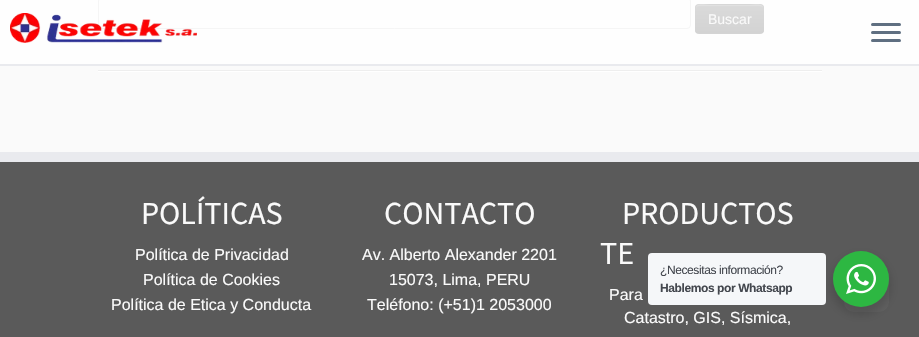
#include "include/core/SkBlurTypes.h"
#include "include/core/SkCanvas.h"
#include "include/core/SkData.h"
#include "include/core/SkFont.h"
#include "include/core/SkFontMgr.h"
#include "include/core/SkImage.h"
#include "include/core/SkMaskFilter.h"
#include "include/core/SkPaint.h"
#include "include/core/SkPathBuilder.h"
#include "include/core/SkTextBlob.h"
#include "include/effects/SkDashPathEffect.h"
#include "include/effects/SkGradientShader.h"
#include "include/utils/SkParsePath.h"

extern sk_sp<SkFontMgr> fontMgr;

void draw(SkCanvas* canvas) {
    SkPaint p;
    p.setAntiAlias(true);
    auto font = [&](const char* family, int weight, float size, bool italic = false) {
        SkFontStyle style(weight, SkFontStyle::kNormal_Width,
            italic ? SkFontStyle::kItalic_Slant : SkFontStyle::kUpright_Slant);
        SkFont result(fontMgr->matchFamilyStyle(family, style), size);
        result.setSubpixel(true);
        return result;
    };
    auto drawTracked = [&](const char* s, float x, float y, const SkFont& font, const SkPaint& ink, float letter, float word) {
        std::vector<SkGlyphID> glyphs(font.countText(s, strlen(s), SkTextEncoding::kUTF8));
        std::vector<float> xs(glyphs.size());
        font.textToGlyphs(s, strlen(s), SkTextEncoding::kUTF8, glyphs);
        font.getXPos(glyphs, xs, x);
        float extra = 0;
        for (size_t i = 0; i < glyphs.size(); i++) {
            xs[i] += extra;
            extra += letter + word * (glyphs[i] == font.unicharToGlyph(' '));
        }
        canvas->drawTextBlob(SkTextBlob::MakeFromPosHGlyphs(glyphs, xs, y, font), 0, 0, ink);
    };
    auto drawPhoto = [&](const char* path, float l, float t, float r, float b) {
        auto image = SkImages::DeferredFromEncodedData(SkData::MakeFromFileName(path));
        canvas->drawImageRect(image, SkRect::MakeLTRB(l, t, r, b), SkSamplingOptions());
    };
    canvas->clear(0xFFFAFAFA);
    p.setColor(0xFFFEFEFE);
    canvas->drawRect(SkRect::MakeLTRB(0, 0, 919, 64), p);
    p.setColor(0xFFE9EAEE);
    canvas->drawRect(SkRect::MakeLTRB(0, 64, 919, 66), p);
    p.setStyle(SkPaint::kStroke_Style);
    p.setStrokeWidth(1);
    p.setColor(0xFFF5F5F5);
    canvas->drawRoundRect(SkRect::MakeLTRB(98.5f, -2.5f, 690.5f, 28.5f), 3.5f, 3.5f, p);
    drawPhoto("media/1.png", 10, 13, 197, 43);
    p.setStyle(SkPaint::kFill_Style);
    p.setColor(0xFF5F6F81);
    canvas->drawRoundRect(SkRect::MakeLTRB(871, 23, 901, 26), 1.5f, 1.5f, p);
    canvas->drawRoundRect(SkRect::MakeLTRB(871, 31, 901, 34), 1.5f, 1.5f, p);
    canvas->drawRoundRect(SkRect::MakeLTRB(871, 39, 901, 42), 1.5f, 1.5f, p);
    p.setColor(0xFFD7D7D7);
    canvas->drawRoundRect(SkRect::MakeLTRB(695, 4, 764, 34), 4, 4, p);
    canvas->save();
    canvas->clipPath(SkPathBuilder().moveTo(699, 4).lineTo(760, 4).cubicTo(762, 4, 764, 6, 764, 8).lineTo(764, 30).cubicTo(764, 32, 762, 34, 760, 34).lineTo(699, 34).cubicTo(697, 34, 695, 32, 695, 30).lineTo(695, 8).cubicTo(695, 6, 697, 4, 699, 4).close().detach(), true);
    {
        const SkColor colors[] = {0xFFDADADA, 0xFFD3D3D3};
        const float stops[] = {0, 1};
        const SkPoint ends[] = {{730, 5}, {730, 33}};
        p.setShader(SkGradientShader::MakeLinear(ends, colors, stops, 2, SkTileMode::kClamp));
        p.setAlpha(255);
    }
    canvas->drawRect(SkRect::MakeLTRB(695, 5, 764, 33), p);
    canvas->restore();
    p.setShader(nullptr);
    p.setColor(0x33FFFFFF);
    canvas->drawPath(SkPathBuilder().moveTo(699, 6).lineTo(760, 6).cubicTo(762, 6, 763, 7, 763, 9).cubicTo(763, 2, 754, 5, 750, 5).lineTo(709, 5).cubicTo(705, 5, 696, 2, 696, 9).cubicTo(696, 7, 697, 6, 699, 6).close().detach(), p);
    p.setStyle(SkPaint::kStroke_Style);
    p.setColor(0x40CCCCCC);
    canvas->drawPath(SkPathBuilder().moveTo(762.5f, 32.5f).lineTo(760.5f, 33.5f).lineTo(698.5f, 33.5f).lineTo(696.5f, 32.5f).detach(), p);
    auto font1 = font("Liberation Sans", 400, 14);
    p.setStyle(SkPaint::kFill_Style);
    p.setColor(0xFFFAFAFA);
    canvas->drawString("Buscar", 708, 24, font1, p);
    {
        const struct { float l, t, r, b; SkColor color; } items[] = {
            {98, 70, 822, 71, 0xFFEEEEEE},
            {98, 71, 822, 72, 0xFFFFFFFF},
            {0, 162, 919, 337, 0xFF5A5A5A},
            {0, 152, 919, 162, 0xFFE9EAEE},
        };
        for (auto [l, t, r, b, color] : items) {
            p.setColor(color);
            canvas->drawRect(SkRect::MakeLTRB(l, t, r, b), p);
        }
    }
    auto font2 = font("Source Sans Pro", 400, 32);
    p.setColor(0xFFFAFAFA);
    canvas->drawString("POLÍTICAS", 141, 224, font2, p);
    auto font3 = font("Liberation Sans", 400, 16);
    {
        const struct { const char* s; float x, y; } items[] = {
            {"Política de Privacidad", 135, 260},
            {"Política de Cookies", 143, 285},
            {"Política de Etica y Conducta", 111, 310},
        };
        for (auto [s, x, y] : items) {
            canvas->drawString(s, x, y, font3, p);
        }
    }
    canvas->drawString("CONTACTO", 384, 224, font2, p);
    {
        const struct { const char* s; float x, y; } items[] = {
            {"Av. Alberto Alexander 2201", 362, 260},
            {"15073, Lima, PERU", 389, 285},
            {"Teléfono: (+51)1 2053000", 367, 310},
        };
        for (auto [s, x, y] : items) {
            canvas->drawString(s, x, y, font3, p);
        }
    }
    canvas->drawString("PRODUCTOS", 622, 224, font2, p);
    canvas->drawString("TE", 600, 264, font2, p);
    canvas->drawString("Para", 609, 300, font3, p);
    canvas->drawString("Catastro, GIS, Sísmica,", 624, 323, font3, p);
    p.setColor(0xFF606060);
    canvas->drawRoundRect(SkRect::MakeLTRB(844, 267, 889, 312), 10, 10, p);
    p.setColor(0x24000000);
    p.setMaskFilter(SkMaskFilter::MakeBlur(kNormal_SkBlurStyle, 4));
    canvas->drawRoundRect(SkRect::MakeLTRB(831, 255, 891, 315), 30, 30, p);
    p.setMaskFilter(nullptr);
    p.setColor(0xFFF5F7F9);
    canvas->drawRoundRect(SkRect::MakeLTRB(648, 253, 826, 305), 4, 4, p);
    auto font4 = font("Liberation Sans", 400, 12);
    p.setColor(0xFF43474E);
    drawTracked("¿Necesitas información?", 660, 274, font4, p, -0.4f, 0);
    auto font5 = font("Liberation Sans", 700, 12);
    drawTracked("Hablemos por Whatsapp", 660, 292, font5, p, -0.4f, 0);
    p.setColor(0xFF2DB742);
    canvas->drawCircle(861, 279, 28, p);
    drawPhoto("media/2.png", 846, 264, 876, 294);
}
